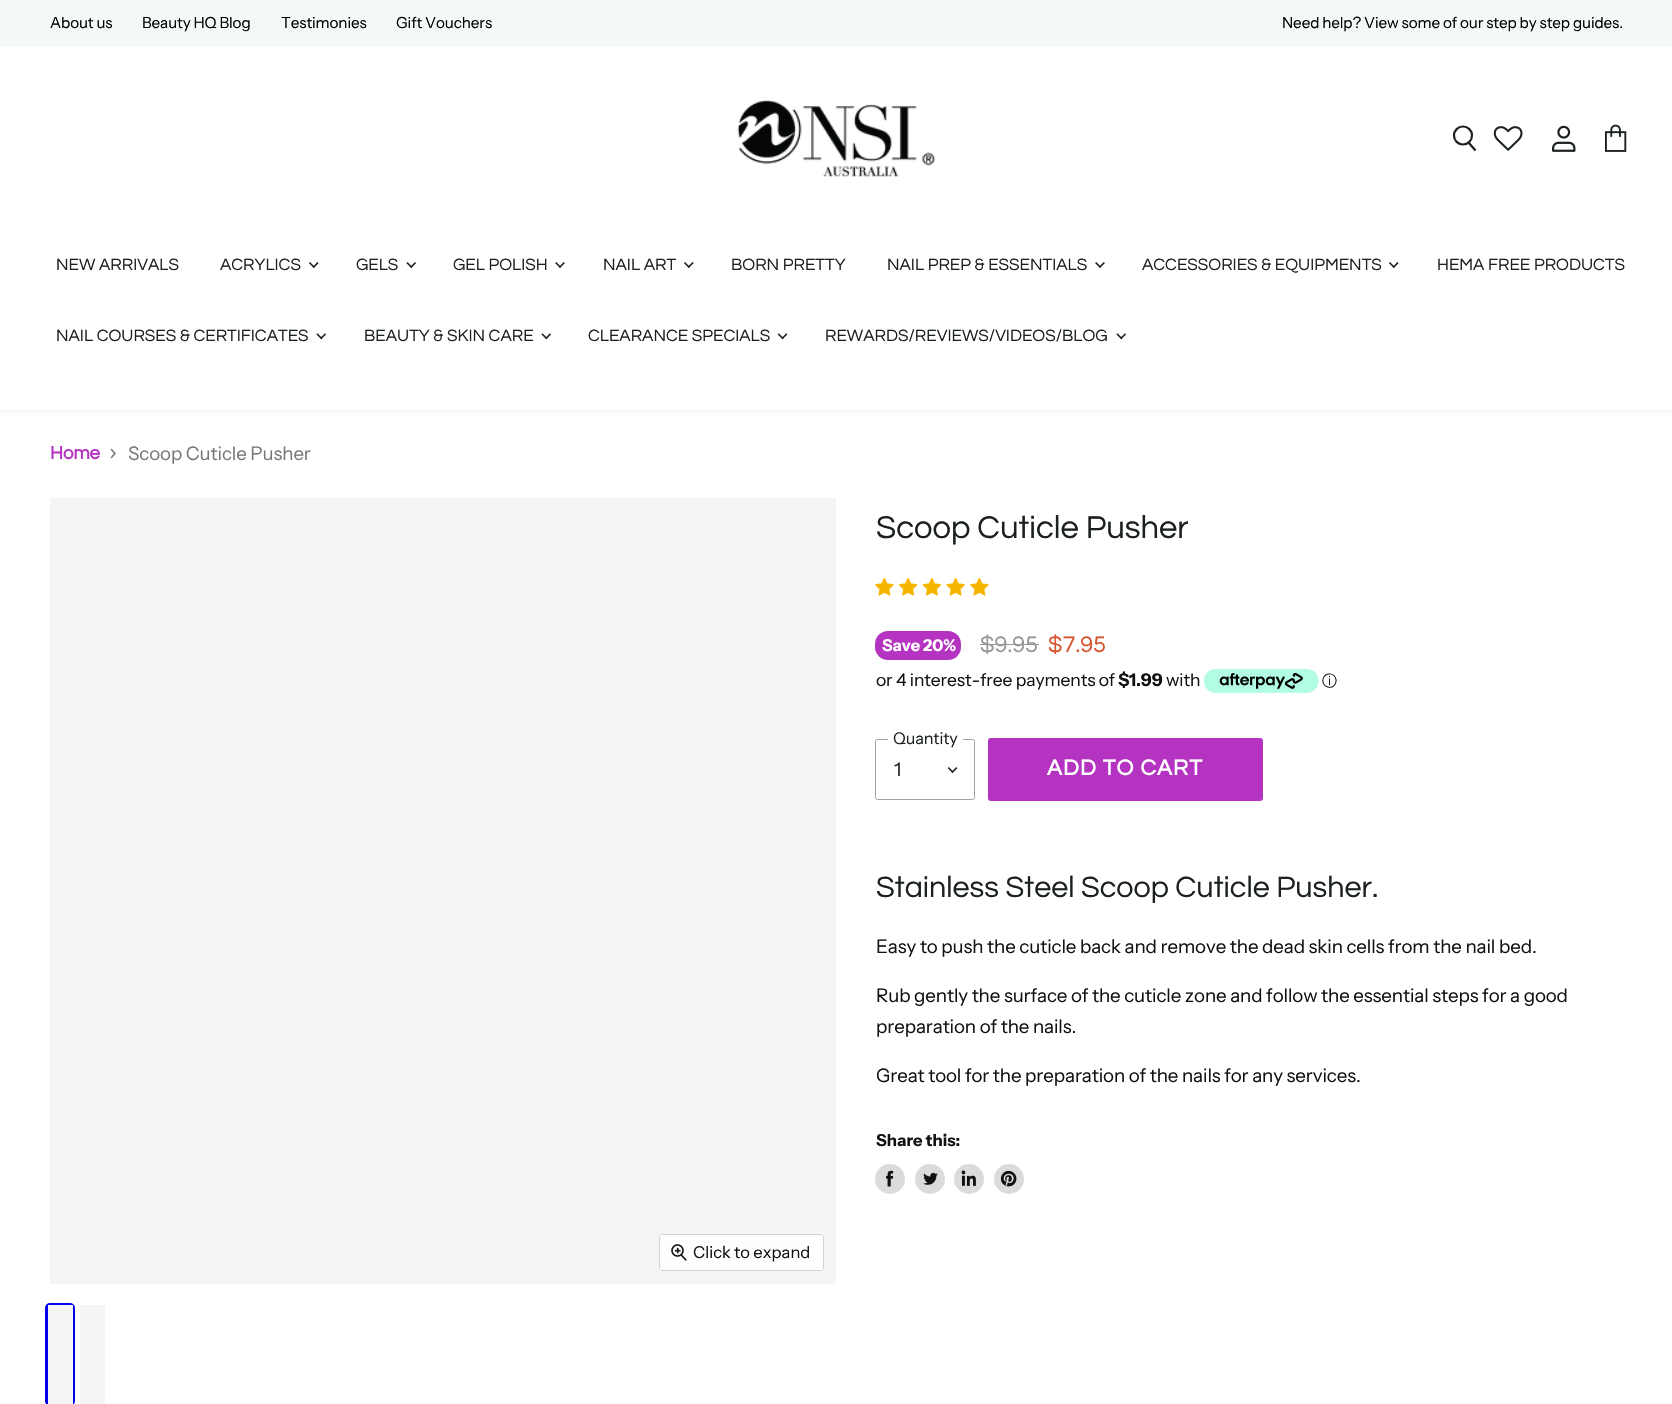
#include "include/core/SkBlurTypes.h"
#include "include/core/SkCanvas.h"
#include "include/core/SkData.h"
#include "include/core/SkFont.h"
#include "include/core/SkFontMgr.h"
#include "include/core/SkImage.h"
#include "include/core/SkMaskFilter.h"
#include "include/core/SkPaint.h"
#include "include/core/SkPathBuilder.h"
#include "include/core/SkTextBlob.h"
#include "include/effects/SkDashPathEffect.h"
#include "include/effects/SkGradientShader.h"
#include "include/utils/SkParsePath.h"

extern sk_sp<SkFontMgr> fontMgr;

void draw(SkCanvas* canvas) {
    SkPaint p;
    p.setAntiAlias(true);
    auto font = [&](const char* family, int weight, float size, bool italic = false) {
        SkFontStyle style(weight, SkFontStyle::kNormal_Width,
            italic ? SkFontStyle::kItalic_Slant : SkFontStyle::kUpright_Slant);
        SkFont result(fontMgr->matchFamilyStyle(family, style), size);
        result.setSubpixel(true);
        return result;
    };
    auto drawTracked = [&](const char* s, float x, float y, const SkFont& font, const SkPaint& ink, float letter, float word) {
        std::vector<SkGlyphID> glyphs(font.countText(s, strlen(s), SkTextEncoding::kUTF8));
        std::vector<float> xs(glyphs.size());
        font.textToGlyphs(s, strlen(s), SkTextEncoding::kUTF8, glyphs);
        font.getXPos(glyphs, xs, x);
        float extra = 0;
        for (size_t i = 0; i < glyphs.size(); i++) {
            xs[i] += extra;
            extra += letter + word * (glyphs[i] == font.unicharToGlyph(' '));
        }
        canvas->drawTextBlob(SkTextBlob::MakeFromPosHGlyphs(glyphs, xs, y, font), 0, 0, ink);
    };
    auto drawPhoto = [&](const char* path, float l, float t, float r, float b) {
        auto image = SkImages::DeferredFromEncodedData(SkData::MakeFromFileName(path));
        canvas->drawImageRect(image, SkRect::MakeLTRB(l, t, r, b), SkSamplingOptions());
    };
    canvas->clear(0xFFFFFFFF);
    p.setColor(0xFFF4F8F7);
    canvas->drawRect(SkRect::MakeLTRB(0, 0, 1672, 46), p);
    auto font1 = font("Instrument Sans", 400, 15.25f);
    p.setColor(0xFF000000);
    {
        const struct { const char* s; float x, y; } items[] = {
            {"About us", 50, 28},
            {"Beauty HQ Blog", 142, 28},
            {"Testimonies", 281, 28},
            {"Gift Vouchers", 396, 28},
            {"Need help? View some of our step by step guides.", 1282, 28},
        };
        for (auto [s, x, y] : items) {
            drawTracked(s, x, y, font1, p, -0.1f, 0);
        }
    }
    canvas->save();
    canvas->clipPath(SkPathBuilder(SkPathFillType::kEvenOdd).moveTo(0, 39).lineTo(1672, 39).lineTo(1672, 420).lineTo(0, 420).close().moveTo(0, 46).lineTo(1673, 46).lineTo(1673, 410).lineTo(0, 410).close().detach(), true);
    p.setColor(0x40BAC0BE);
    p.setMaskFilter(SkMaskFilter::MakeBlur(kNormal_SkBlurStyle, 2.5f));
    canvas->drawRect(SkRect::MakeLTRB(0, 48, 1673, 411), p);
    p.setMaskFilter(nullptr);
    canvas->restore();
    drawPhoto("media/1.png", 737, 100, 936, 177);
    p.setStyle(SkPaint::kStroke_Style);
    p.setStrokeWidth(2.2f);
    p.setColor(0xFF1B2120);
    canvas->drawPath(SkPathBuilder().moveTo(1475.5f, 150.5f).lineTo(1468.5f, 142.5f).detach(), p);
    canvas->drawCircle(1463, 135.5f, 9, p);
    drawPhoto("media/2.png", 1493, 126, 1523, 151);
    drawPhoto("media/3.png", 1552, 125, 1576, 152);
    drawPhoto("media/4.png", 1605, 124, 1627, 152);
    auto font2 = font("Questrial", 400, 17.1f);
    p.setStyle(SkPaint::kFill_Style);
    canvas->drawString("NEW ARRIVALS", 56, 270, font2, p);
    canvas->drawString("ACRYLICS", 220, 270, font2, p);
    drawPhoto("media/5.png", 309, 262, 319, 268);
    canvas->drawString("GELS", 356, 270, font2, p);
    drawPhoto("media/6.png", 406, 262, 416, 268);
    canvas->drawString("GEL POLISH", 453, 270, font2, p);
    drawPhoto("media/7.png", 555, 262, 565, 268);
    canvas->drawString("NAIL ART", 603, 270, font2, p);
    drawPhoto("media/5.png", 684, 262, 694, 268);
    canvas->drawString("BORN PRETTY", 731, 270, font2, p);
    canvas->drawString("NAIL PREP & ESSENTIALS", 887, 270, font2, p);
    drawPhoto("media/7.png", 1095, 262, 1105, 268);
    canvas->drawString("ACCESSORIES & EQUIPMENTS", 1142, 270, font2, p);
    drawPhoto("media/5.png", 1389, 262, 1399, 268);
    canvas->drawString("HEMA FREE PRODUCTS", 1437, 270, font2, p);
    canvas->drawString("NAIL COURSES & CERTIFICATES", 56, 341, font2, p);
    drawPhoto("media/8.png", 316, 333, 326, 340);
    canvas->drawString("BEAUTY & SKIN CARE", 364, 341, font2, p);
    drawPhoto("media/8.png", 541, 333, 551, 340);
    canvas->drawString("CLEARANCE SPECIALS", 588, 341, font2, p);
    drawPhoto("media/9.png", 778, 333, 788, 340);
    canvas->drawString("REWARDS/REVIEWS/VIDEOS/BLOG", 825, 341, font2, p);
    drawPhoto("media/8.png", 1116, 333, 1126, 340);
    auto font3 = font("Questrial", 700, 18.75f);
    p.setColor(0xFFB433C1);
    drawTracked("Home", 50, 459, font3, p, -0.1f, 0);
    canvas->save();
    canvas->clipPath(SkPathBuilder().moveTo(110.5f, 458.5f).lineTo(110.5f, 448.5f).lineTo(117, 448.5f).lineTo(117, 458.5f).close().detach(), true);
    p.setStyle(SkPaint::kStroke_Style);
    p.setStrokeWidth(1.6f);
    p.setColor(0xFF757977);
    canvas->drawPath(SkPathBuilder().moveTo(111, 458).lineTo(115, 453.5f).lineTo(111, 449).detach(), p);
    canvas->restore();
    auto font4 = font("Instrument Sans", 400, 18.75f);
    p.setStyle(SkPaint::kFill_Style);
    drawTracked("Scoop Cuticle Pusher", 128, 460, font4, p, -0.1f, 0);
    auto font5 = font("Questrial", 400, 32.75f);
    p.setColor(0xFF1B2120);
    canvas->drawString("Scoop Cuticle Pusher", 876, 538, font5, p);
    drawPhoto("media/10.png", 875, 577, 894, 596);
    drawPhoto("media/11.png", 898, 577, 918, 596);
    drawPhoto("media/12.png", 922, 577, 942, 596);
    drawPhoto("media/13.png", 946, 577, 965, 596);
    drawPhoto("media/10.png", 970, 577, 989, 596);
    p.setColor(0xFFB433C1);
    canvas->drawRoundRect(SkRect::MakeLTRB(875, 631, 961, 660), 13, 13, p);
    auto font6 = font("Instrument Sans", 700, 16.25f);
    p.setColor(0xFFFFFFFF);
    canvas->drawString("Save 20%", 882, 651, font6, p);
    auto font7 = font("Questrial", 400, 23.5f);
    p.setColor(0xFF959897);
    canvas->drawString("$9.95", 980, 652, font7, p);
    canvas->drawRect(SkRect::MakeLTRB(980, 644, 1039, 645), p);
    p.setColor(0xFFD8532F);
    canvas->drawString("$7.95", 1048, 652, font7, p);
    auto font8 = font("Instrument Sans", 400, 17.5f);
    p.setColor(0xFF111111);
    drawTracked("or 4 interest-free payments of", 876, 686, font8, p, -0.1f, 0);
    auto font9 = font("Instrument Sans", 700, 17.5f);
    drawTracked("$1.99", 1118, 686, font9, p, -0.1f, 0);
    drawTracked("with", 1166, 686, font8, p, -0.1f, 0);
    drawPhoto("media/14.png", 1204, 668, 1319, 693);
    auto font10 = font("WenQuanYi Zen Hei", 500, 15);
    canvas->drawString("ⓘ", 1322, 686, font10, p);
    p.setStyle(SkPaint::kStroke_Style);
    p.setStrokeWidth(1);
    p.setColor(0xFFA1A6A4);
    canvas->drawRoundRect(SkRect::MakeLTRB(875.5f, 739.5f, 974.5f, 799.5f), 2, 2, p);
    p.setStyle(SkPaint::kFill_Style);
    p.setColor(0xFFFFFFFF);
    canvas->drawRect(SkRect::MakeLTRB(888, 739, 963, 740), p);
    auto font11 = font("Instrument Sans", 400, 16.25f);
    p.setColor(0xFF1B2120);
    drawTracked("Quantity", 893, 744, font11, p, -0.1f, 0);
    drawTracked("1", 894, 776, font4, p, -0.1f, 0);
    drawPhoto("media/15.png", 948, 767, 958, 773);
    p.setColor(0xFFB433C1);
    canvas->drawRoundRect(SkRect::MakeLTRB(988.5f, 738.5f, 1262.5f, 800.5f), 2, 2, p);
    p.setStyle(SkPaint::kStroke_Style);
    canvas->drawRoundRect(SkRect::MakeLTRB(988.5f, 738.5f, 1262.5f, 800.5f), 2, 2, p);
    auto font12 = font("Questrial", 700, 22.5f);
    p.setStyle(SkPaint::kFill_Style);
    p.setColor(0xFFFFFFFF);
    drawTracked("ADD TO CART", 1047, 775, font12, p, 1.1f, 0);
    auto font13 = font("Questrial", 400, 30.5f);
    p.setColor(0xFF1B2120);
    canvas->drawString("Stainless Steel Scoop Cuticle Pusher.", 876, 897, font13, p);
    p.setColor(0xFF111111);
    {
        const struct { const char* s; float x, y; } items[] = {
            {"Easy to push the cuticle back and remove the dead skin cells from the nail bed.", 876, 953},
            {"Rub gently the surface of the cuticle zone and follow the essential steps for a good", 876, 1002},
            {"preparation of the nails.", 876, 1033},
            {"Great tool for the preparation of the nails for any services.", 876, 1082},
        };
        for (auto [s, x, y] : items) {
            drawTracked(s, x, y, font4, p, -0.1f, 0);
        }
    }
    auto font14 = font("Instrument Sans", 700, 16.5f);
    canvas->drawString("Share this:", 876, 1146, font14, p);
    p.setColor(0xFFDBDBDB);
    canvas->drawCircle(890, 1179, 15, p);
    drawPhoto("media/16.png", 886, 1170, 894, 1187);
    canvas->drawCircle(930, 1179, 15, p);
    drawPhoto("media/17.png", 923, 1172, 938, 1185);
    canvas->drawCircle(969, 1179, 15, p);
    drawPhoto("media/18.png", 961, 1170, 976, 1186);
    canvas->drawCircle(1009, 1179, 15, p);
    drawPhoto("media/19.png", 1000, 1170, 1017, 1187);
    p.setColor(0xFFF5F5F5);
    canvas->drawRect(SkRect::MakeLTRB(50, 498, 836, 1284), p);
    p.setStyle(SkPaint::kStroke_Style);
    p.setColor(0xFFD0D0D0);
    canvas->drawRoundRect(SkRect::MakeLTRB(659.5f, 1234.5f, 823.5f, 1270.5f), 3.5f, 3.5f, p);
    p.setStyle(SkPaint::kFill_Style);
    p.setColor(0xE6FFFFFF);
    canvas->drawRoundRect(SkRect::MakeLTRB(660, 1235, 823, 1270), 2.5f, 2.5f, p);
    drawPhoto("media/20.png", 671, 1244, 687, 1261);
    auto font15 = font("Instrument Sans", 400, 16.5f);
    p.setColor(0xFF111111);
    canvas->drawString("Click to expand", 693, 1258, font15, p);
    p.setStyle(SkPaint::kStroke_Style);
    p.setStrokeWidth(3);
    p.setColor(0xFF0000EE);
    canvas->drawRoundRect(SkRect::MakeLTRB(46.5f, 1304.5f, 73.5f, 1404.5f), 3.5f, 3.5f, p);
    p.setStyle(SkPaint::kFill_Style);
    p.setColor(0xFFF5F5F5);
    canvas->drawRect(SkRect::MakeLTRB(48, 1305, 73, 1404), p);
    canvas->drawRect(SkRect::MakeLTRB(80, 1305, 105, 1404), p);
}
